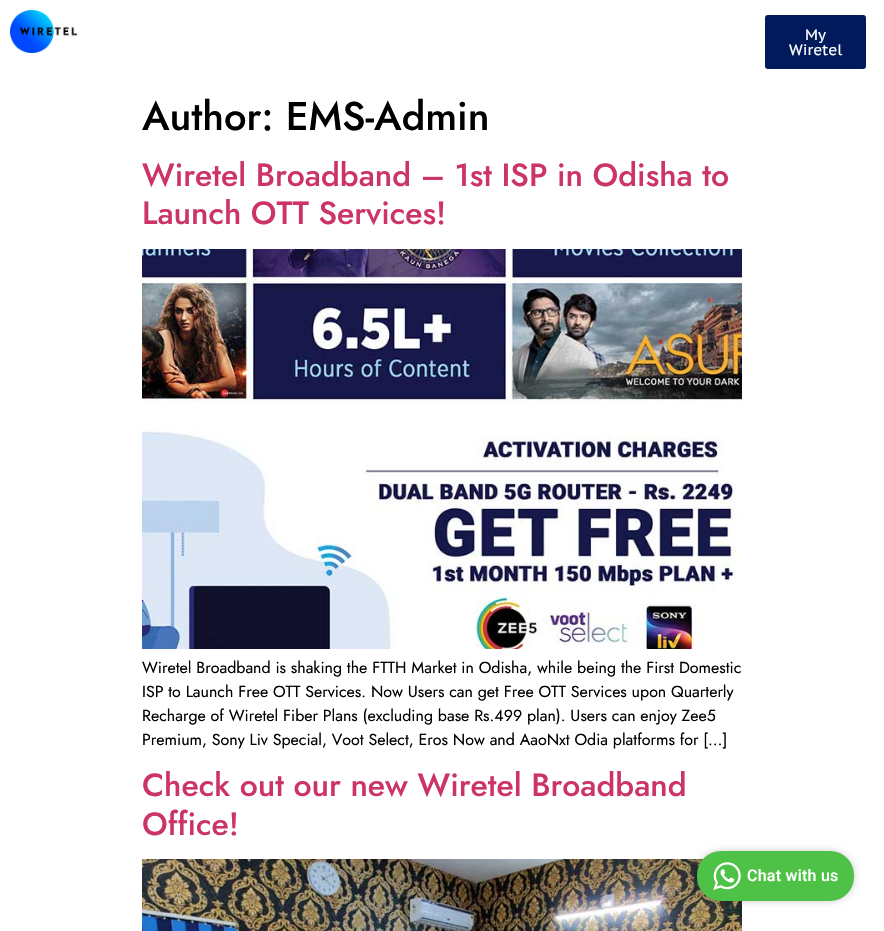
#include "include/core/SkBlurTypes.h"
#include "include/core/SkCanvas.h"
#include "include/core/SkData.h"
#include "include/core/SkFont.h"
#include "include/core/SkFontMgr.h"
#include "include/core/SkImage.h"
#include "include/core/SkMaskFilter.h"
#include "include/core/SkPaint.h"
#include "include/core/SkPathBuilder.h"
#include "include/core/SkTextBlob.h"
#include "include/effects/SkDashPathEffect.h"
#include "include/effects/SkGradientShader.h"
#include "include/utils/SkParsePath.h"

extern sk_sp<SkFontMgr> fontMgr;

void draw(SkCanvas* canvas) {
    SkPaint p;
    p.setAntiAlias(true);
    auto font = [&](const char* family, int weight, float size, bool italic = false) {
        SkFontStyle style(weight, SkFontStyle::kNormal_Width,
            italic ? SkFontStyle::kItalic_Slant : SkFontStyle::kUpright_Slant);
        SkFont result(fontMgr->matchFamilyStyle(family, style), size);
        result.setSubpixel(true);
        return result;
    };
    auto drawTracked = [&](const char* s, float x, float y, const SkFont& font, const SkPaint& ink, float letter, float word) {
        std::vector<SkGlyphID> glyphs(font.countText(s, strlen(s), SkTextEncoding::kUTF8));
        std::vector<float> xs(glyphs.size());
        font.textToGlyphs(s, strlen(s), SkTextEncoding::kUTF8, glyphs);
        font.getXPos(glyphs, xs, x);
        float extra = 0;
        for (size_t i = 0; i < glyphs.size(); i++) {
            xs[i] += extra;
            extra += letter + word * (glyphs[i] == font.unicharToGlyph(' '));
        }
        canvas->drawTextBlob(SkTextBlob::MakeFromPosHGlyphs(glyphs, xs, y, font), 0, 0, ink);
    };
    auto drawPhoto = [&](const char* path, float l, float t, float r, float b) {
        auto image = SkImages::DeferredFromEncodedData(SkData::MakeFromFileName(path));
        canvas->drawImageRect(image, SkRect::MakeLTRB(l, t, r, b), SkSamplingOptions());
    };
    canvas->clear(0xFFFFFFFF);
    drawPhoto("media/1.png", 10, 10, 77, 53);
    p.setColor(0xFF001A5C);
    canvas->drawRoundRect(SkRect::MakeLTRB(765, 15, 866, 69), 3, 3, p);
    auto font1 = font("PT Sans Caption", 400, 15);
    p.setColor(0xFFFFFFFF);
    canvas->drawString("My", 805, 40, font1, p);
    canvas->drawString("Wiretel", 789, 55, font1, p);
    auto font2 = font("Jost", 500, 40);
    p.setColor(0xFF000000);
    canvas->drawString("Author: EMS-Admin", 142, 130, font2, p);
    auto font3 = font("Jost", 500, 32);
    p.setColor(0xFFCC3366);
    canvas->drawString("Wiretel Broadband – 1st ISP in Odisha to", 142, 186, font3, p);
    canvas->drawString("Launch OTT Services!", 142, 224, font3, p);
    drawPhoto("media/2.png", 142, 249, 742, 649);
    auto font4 = font("Jost", 400, 16);
    p.setColor(0xFF000000);
    {
        const struct { const char* s; float x, y; } items[] = {
            {"Wiretel Broadband is shaking the FTTH Market in Odisha, while being the First Domestic", 142, 673},
            {"ISP to Launch Free OTT Services. Now Users can get Free OTT Services upon Quarterly", 142, 697},
            {"Recharge of Wiretel Fiber Plans (excluding base Rs.499 plan). Users can enjoy Zee5", 142, 721},
            {"Premium, Sony Liv Special, Voot Select, Eros Now and AaoNxt Odia platforms for […]", 142, 745},
        };
        for (auto [s, x, y] : items) {
            canvas->drawString(s, x, y, font4, p);
        }
    }
    p.setColor(0xFFCC3366);
    canvas->drawString("Check out our new Wiretel Broadband", 142, 796, font3, p);
    canvas->drawString("Office!", 142, 835, font3, p);
    drawPhoto("media/3.png", 142, 859, 742, 931);
    p.setColor(0x33000000);
    p.setMaskFilter(SkMaskFilter::MakeBlur(kNormal_SkBlurStyle, 3.5f));
    canvas->drawRoundRect(SkRect::MakeLTRB(697, 851, 854, 901), 24, 24, p);
    p.setMaskFilter(nullptr);
    p.setColor(0xFF4DC247);
    canvas->drawRoundRect(SkRect::MakeLTRB(697, 851, 854, 901), 24, 24, p);
    drawPhoto("media/4.png", 713, 862, 741, 890);
    auto font5 = font("Roboto", 500, 16);
    p.setColor(0xFFFFFFFF);
    drawTracked("Chat with us", 747, 881, font5, p, 0.25f, 0);
}
